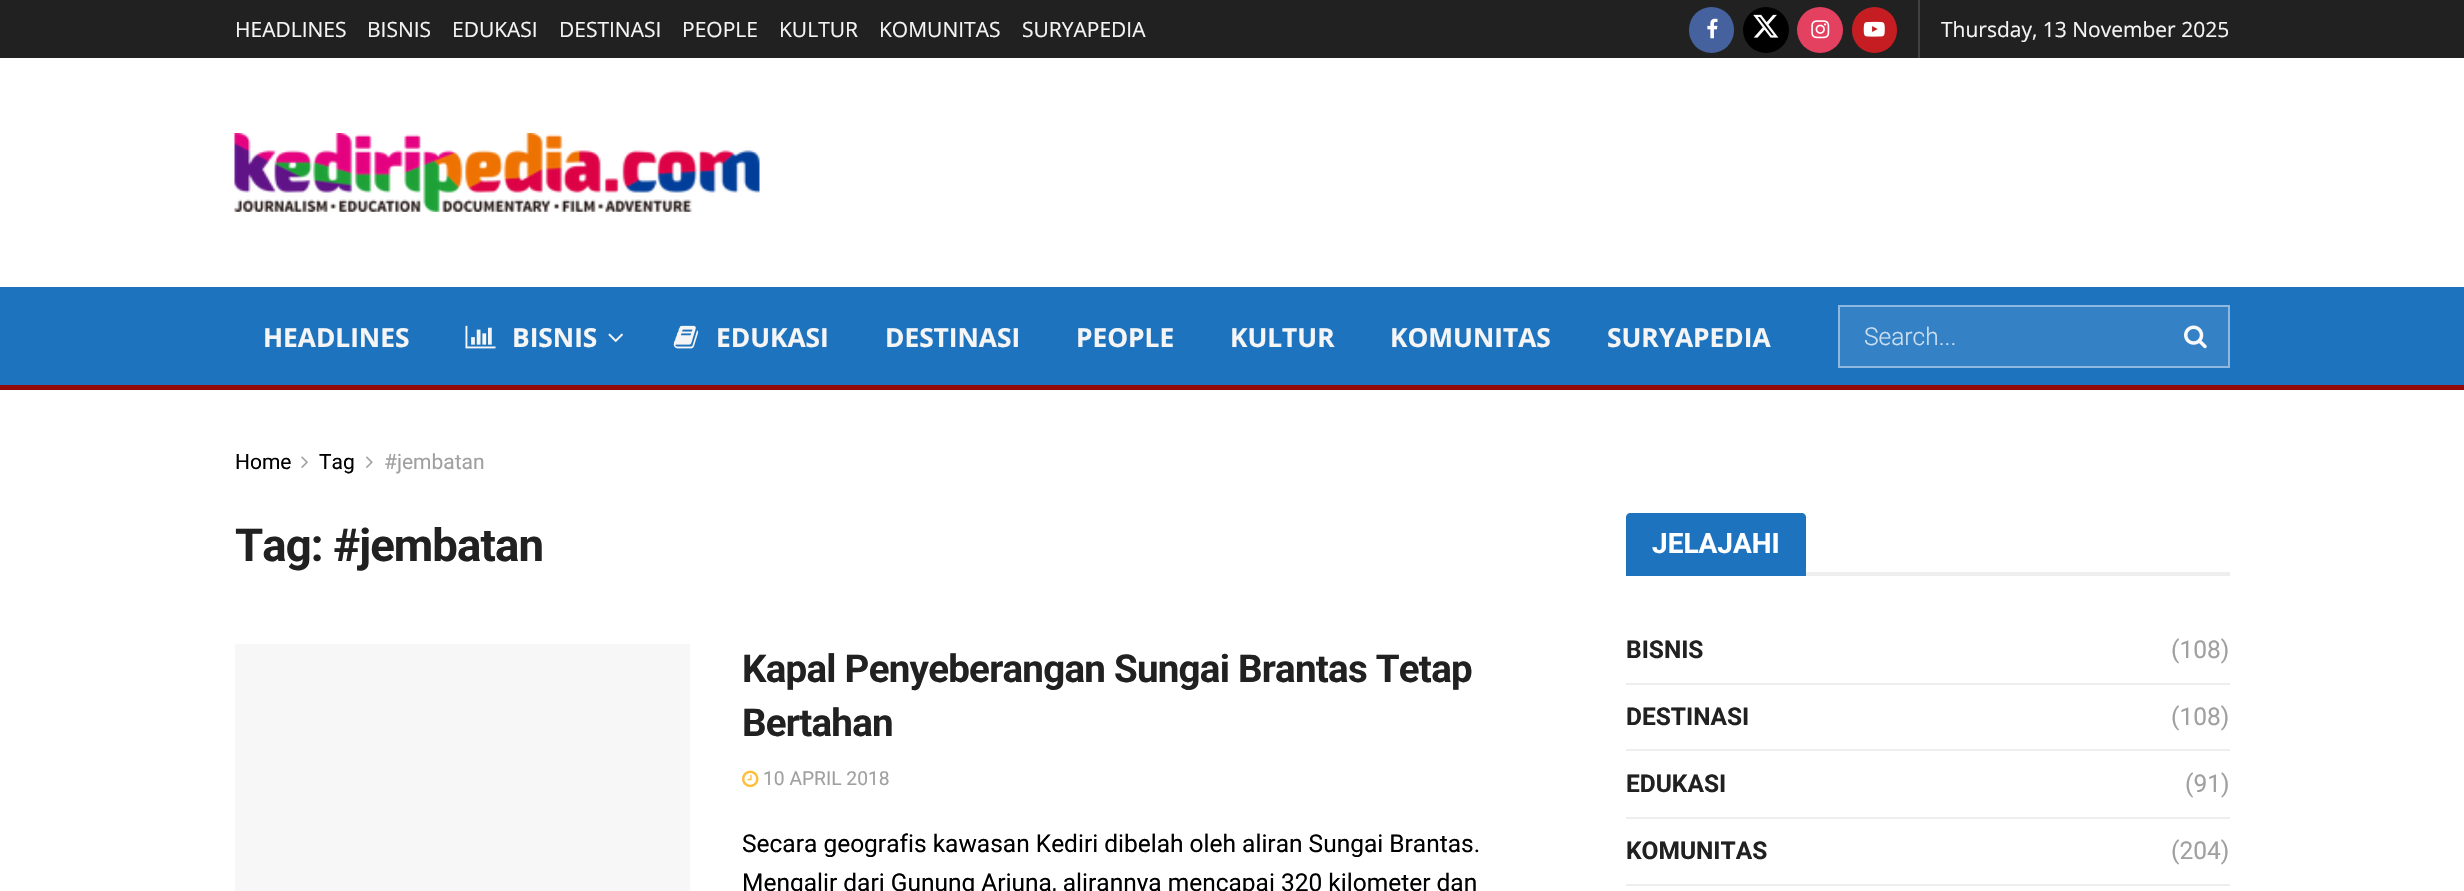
#include "include/core/SkBlurTypes.h"
#include "include/core/SkCanvas.h"
#include "include/core/SkData.h"
#include "include/core/SkFont.h"
#include "include/core/SkFontMgr.h"
#include "include/core/SkImage.h"
#include "include/core/SkMaskFilter.h"
#include "include/core/SkPaint.h"
#include "include/core/SkPathBuilder.h"
#include "include/core/SkTextBlob.h"
#include "include/effects/SkDashPathEffect.h"
#include "include/effects/SkGradientShader.h"
#include "include/utils/SkParsePath.h"

extern sk_sp<SkFontMgr> fontMgr;

void draw(SkCanvas* canvas) {
    SkPaint p;
    p.setAntiAlias(true);
    auto font = [&](const char* family, int weight, float size, bool italic = false) {
        SkFontStyle style(weight, SkFontStyle::kNormal_Width,
            italic ? SkFontStyle::kItalic_Slant : SkFontStyle::kUpright_Slant);
        SkFont result(fontMgr->matchFamilyStyle(family, style), size);
        result.setSubpixel(true);
        return result;
    };
    auto drawTracked = [&](const char* s, float x, float y, const SkFont& font, const SkPaint& ink, float letter, float word) {
        std::vector<SkGlyphID> glyphs(font.countText(s, strlen(s), SkTextEncoding::kUTF8));
        std::vector<float> xs(glyphs.size());
        font.textToGlyphs(s, strlen(s), SkTextEncoding::kUTF8, glyphs);
        font.getXPos(glyphs, xs, x);
        float extra = 0;
        for (size_t i = 0; i < glyphs.size(); i++) {
            xs[i] += extra;
            extra += letter + word * (glyphs[i] == font.unicharToGlyph(' '));
        }
        canvas->drawTextBlob(SkTextBlob::MakeFromPosHGlyphs(glyphs, xs, y, font), 0, 0, ink);
    };
    auto drawPhoto = [&](const char* path, float l, float t, float r, float b) {
        auto image = SkImages::DeferredFromEncodedData(SkData::MakeFromFileName(path));
        canvas->drawImageRect(image, SkRect::MakeLTRB(l, t, r, b), SkSamplingOptions());
    };
    canvas->clear(0xFFFFFFFF);
    p.setColor(0xFF212121);
    canvas->drawRect(SkRect::MakeLTRB(0, 0, 2464, 58), p);
    auto font1 = font("Open Sans", 400, 21);
    p.setColor(0xFFF5F5F5);
    {
        const struct { const char* s; float x, y; } items[] = {
            {"HEADLINES", 235, 37},
            {"BISNIS", 367, 37},
            {"EDUKASI", 452, 37},
            {"DESTINASI", 559, 37},
            {"PEOPLE", 682, 37},
            {"KULTUR", 779, 37},
            {"KOMUNITAS", 879, 37},
            {"SURYAPEDIA", 1022, 37},
        };
        for (auto [s, x, y] : items) {
            canvas->drawString(s, x, y, font1, p);
        }
    }
    p.setColor(0xFF424242);
    canvas->drawRect(SkRect::MakeLTRB(1918, 0, 1920, 58), p);
    p.setColor(0xFF45629F);
    canvas->drawRoundRect(SkRect::MakeLTRB(1689, 7, 1734, 53), 22.5f, 22.5f, p);
    drawPhoto("media/1.png", 1707, 18, 1718, 39);
    p.setColor(0xFF000000);
    canvas->drawCircle(1766, 30, 23, p);
    drawPhoto("media/2.png", 1753, 14, 1779, 38);
    p.setColor(0xFFE4405F);
    canvas->drawCircle(1820, 30, 23, p);
    drawPhoto("media/3.png", 1811, 20, 1830, 39);
    p.setColor(0xFFC61D23);
    canvas->drawRoundRect(SkRect::MakeLTRB(1852, 7, 1897, 53), 22.5f, 22.5f, p);
    drawPhoto("media/4.png", 1863, 21, 1885, 37);
    p.setColor(0xFFF5F5F5);
    canvas->drawString("Thursday, 13 November 2025", 1941, 37, font1, p);
    drawPhoto("media/5.png", 234, 133, 760, 212);
    p.setColor(0xFF1E73BE);
    canvas->drawRect(SkRect::MakeLTRB(0, 287, 2464, 385), p);
    p.setColor(0xFF930A0A);
    canvas->drawRect(SkRect::MakeLTRB(0, 385, 2464, 390), p);
    auto font2 = font("Open Sans", 700, 26.25f);
    p.setColor(0xFFF5F5F5);
    canvas->drawString("HEADLINES", 263, 347, font2, p);
    drawPhoto("media/6.png", 465, 325, 496, 349);
    canvas->drawString("BISNIS", 512, 347, font2, p);
    drawPhoto("media/7.png", 608, 333, 623, 342);
    drawPhoto("media/8.png", 673, 325, 699, 349);
    {
        const struct { const char* s; float x, y; } items[] = {
            {"EDUKASI", 716, 347},
            {"DESTINASI", 885, 347},
            {"PEOPLE", 1076, 347},
            {"KULTUR", 1230, 347},
            {"KOMUNITAS", 1390, 347},
            {"SURYAPEDIA", 1607, 347},
        };
        for (auto [s, x, y] : items) {
            canvas->drawString(s, x, y, font2, p);
        }
    }
    p.setColor(0xFF3581C5);
    canvas->drawRect(SkRect::MakeLTRB(1839, 306, 2229, 367), p);
    p.setStyle(SkPaint::kStroke_Style);
    p.setStrokeWidth(2);
    p.setColor(0xFF8EB8DF);
    canvas->drawRect(SkRect::MakeLTRB(1839, 306, 2229, 367), p);
    auto font3 = font("Roboto", 300, 24.5f);
    p.setStyle(SkPaint::kFill_Style);
    p.setColor(0xFFCDE0F1);
    canvas->drawString("Search...", 1864, 345, font3, p);
    drawPhoto("media/9.png", 2184, 325, 2207, 349);
    auto font4 = font("Roboto", 400, 21);
    p.setColor(0xFF000000);
    canvas->drawString("Home", 235, 469, font4, p);
    drawPhoto("media/10.png", 301, 456, 308, 468);
    canvas->drawString("Tag", 319, 469, font4, p);
    drawPhoto("media/11.png", 366, 456, 373, 468);
    p.setColor(0xFFA0A0A0);
    canvas->drawString("#jembatan", 384, 469, font4, p);
    auto font5 = font("Roboto", 700, 45.5f);
    p.setColor(0xFF212121);
    drawTracked("Tag: #jembatan", 235, 561, font5, p, -0.9f, 0);
    p.setColor(0xFFF7F7F7);
    canvas->drawRect(SkRect::MakeLTRB(235, 644, 690, 891), p);
    auto font6 = font("Roboto", 700, 38.5f);
    p.setColor(0xFF212121);
    drawTracked("Kapal Penyeberangan Sungai Brantas Tetap", 742, 682, font6, p, -0.75f, 0);
    drawTracked("Bertahan", 742, 736, font6, p, -0.75f, 0);
    drawPhoto("media/12.png", 742, 770, 759, 788);
    auto font7 = font("Roboto", 400, 19.25f);
    p.setColor(0xFFA0A0A0);
    canvas->drawString("10 APRIL 2018", 763, 785, font7, p);
    auto font8 = font("Roboto", 400, 24.5f);
    p.setColor(0xFF000000);
    canvas->drawString("Secara geografis kawasan Kediri dibelah oleh aliran Sungai Brantas.", 742, 852, font8, p);
    canvas->drawString("Mengalir dari Gunung Arjuna, alirannya mencapai 320 kilometer dan", 742, 891, font8, p);
    p.setColor(0xFFEEEEEE);
    canvas->drawRect(SkRect::MakeLTRB(1806, 572, 2230, 576), p);
    p.setColor(0xFF1E73BE);
    canvas->drawPath(SkPathBuilder().moveTo(1630, 513).lineTo(1802, 513).cubicTo(1804, 513, 1806, 515, 1806, 517).lineTo(1806, 576).lineTo(1626, 576).lineTo(1626, 517).cubicTo(1626, 515, 1628, 513, 1630, 513).close().detach(), p);
    auto font9 = font("Roboto", 700, 28);
    p.setColor(0xFFFFFFFF);
    canvas->drawString("JELAJAHI", 1652, 553, font9, p);
    auto font10 = font("Roboto", 700, 24.5f);
    p.setColor(0xFF212121);
    canvas->drawString("BISNIS", 1626, 658, font10, p);
    p.setColor(0xFFA0A0A0);
    canvas->drawString("(108)", 2171, 658, font8, p);
    p.setColor(0xFFEEEEEE);
    canvas->drawRect(SkRect::MakeLTRB(1626, 683, 2230, 685), p);
    p.setColor(0xFF212121);
    canvas->drawString("DESTINASI", 1626, 725, font10, p);
    p.setColor(0xFFA0A0A0);
    canvas->drawString("(108)", 2171, 725, font8, p);
    p.setColor(0xFFEEEEEE);
    canvas->drawRect(SkRect::MakeLTRB(1626, 749, 2230, 751), p);
    p.setColor(0xFF212121);
    canvas->drawString("EDUKASI", 1626, 792, font10, p);
    p.setColor(0xFFA0A0A0);
    canvas->drawString("(91)", 2185, 792, font8, p);
    p.setColor(0xFFEEEEEE);
    canvas->drawRect(SkRect::MakeLTRB(1626, 817, 2230, 819), p);
    p.setColor(0xFF212121);
    canvas->drawString("KOMUNITAS", 1626, 859, font10, p);
    p.setColor(0xFFA0A0A0);
    canvas->drawString("(204)", 2171, 859, font8, p);
    p.setColor(0xFFEEEEEE);
    canvas->drawRect(SkRect::MakeLTRB(1626, 884, 2230, 886), p);
}
